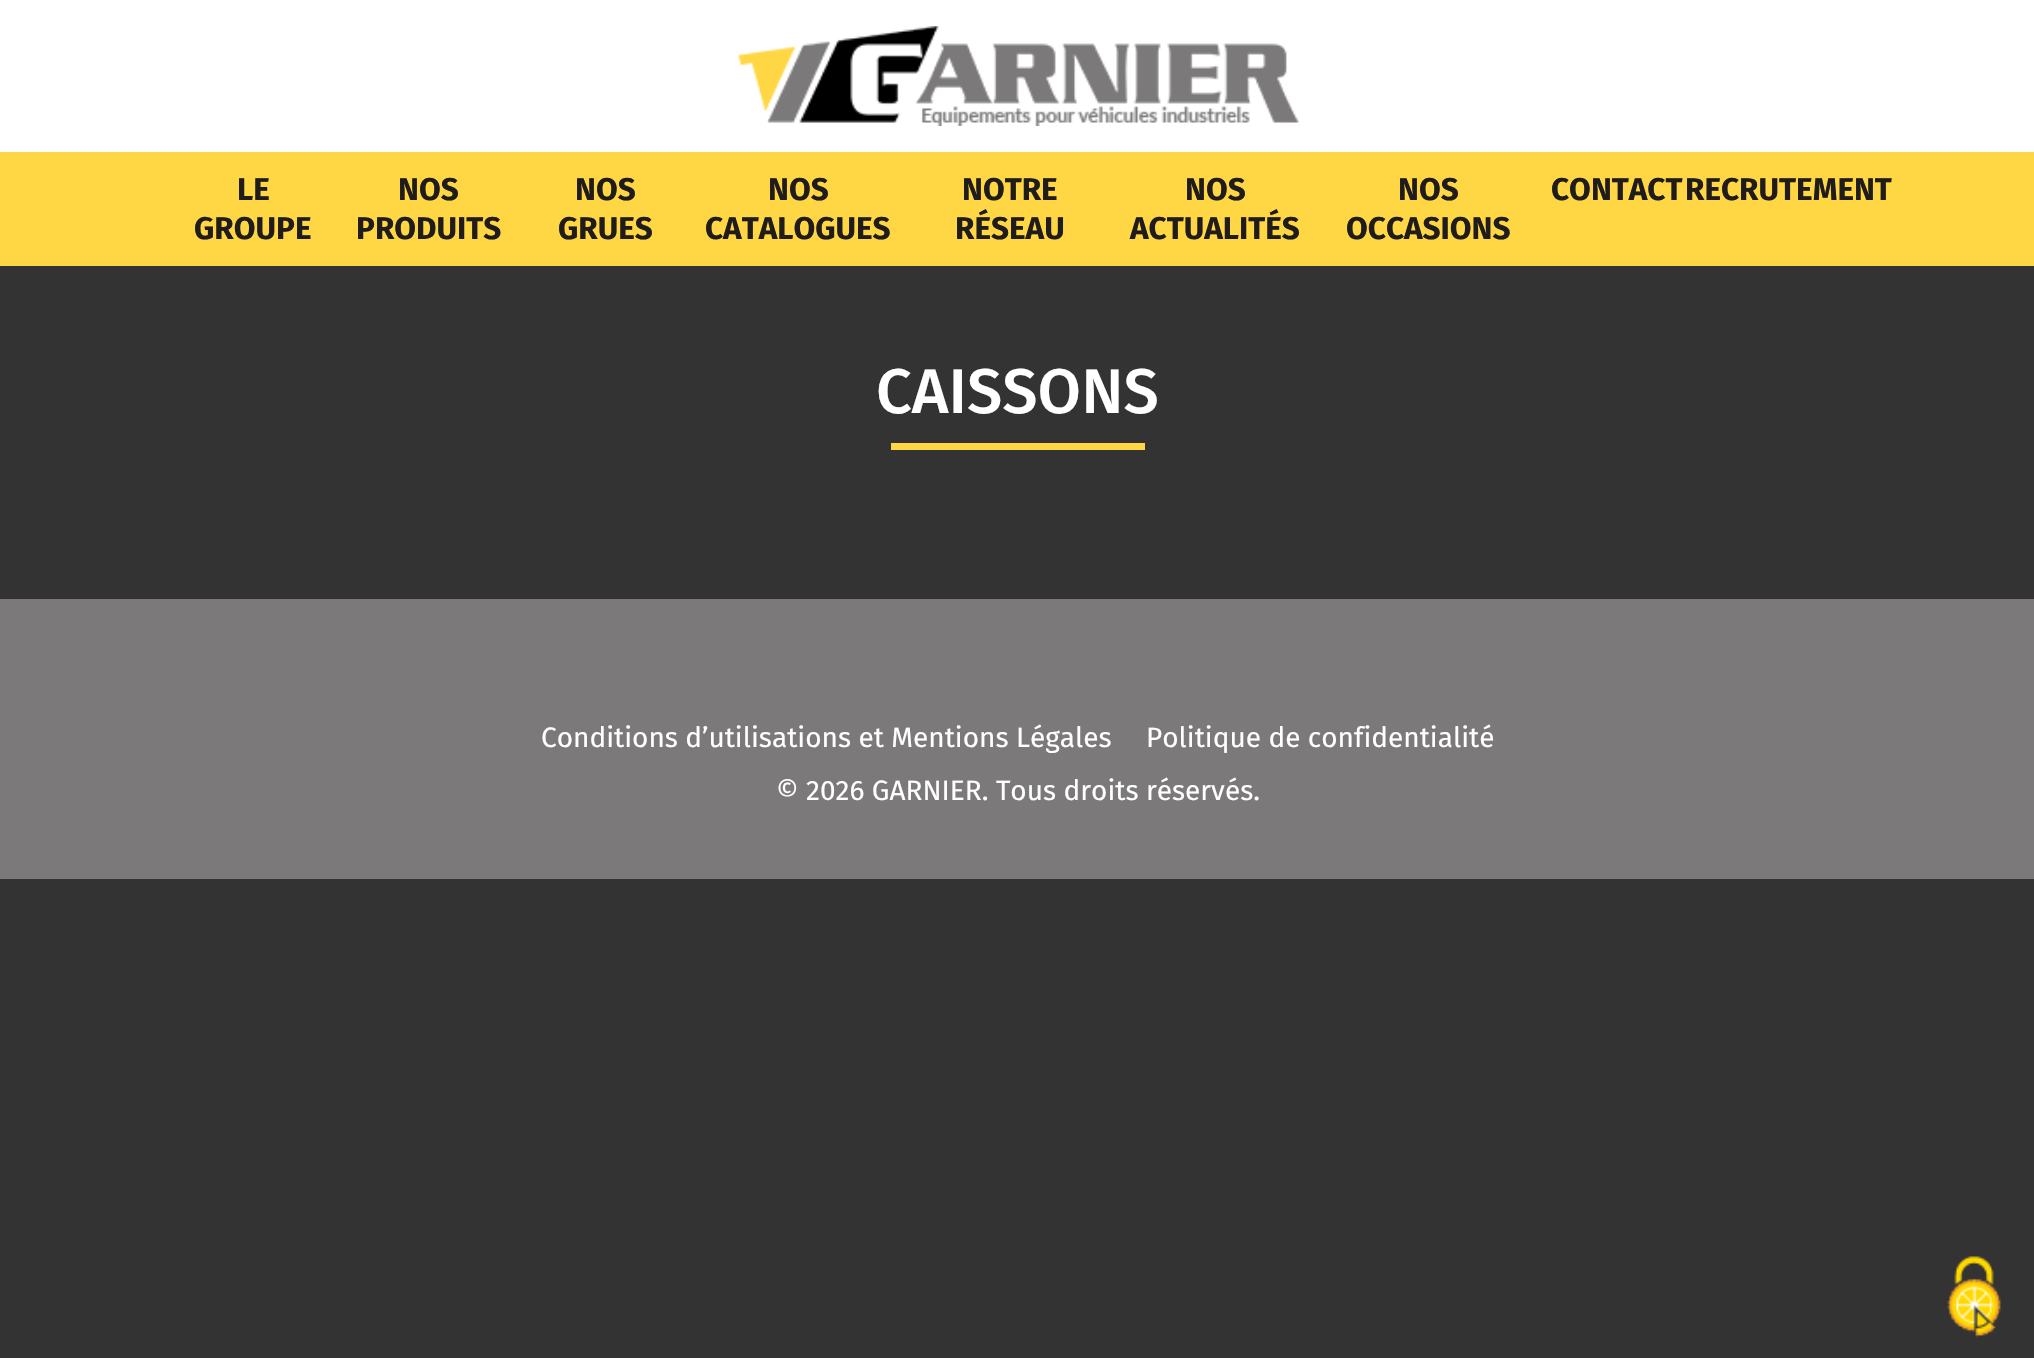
#include "include/core/SkBlurTypes.h"
#include "include/core/SkCanvas.h"
#include "include/core/SkData.h"
#include "include/core/SkFont.h"
#include "include/core/SkFontMgr.h"
#include "include/core/SkImage.h"
#include "include/core/SkMaskFilter.h"
#include "include/core/SkPaint.h"
#include "include/core/SkPathBuilder.h"
#include "include/core/SkTextBlob.h"
#include "include/effects/SkDashPathEffect.h"
#include "include/effects/SkGradientShader.h"
#include "include/utils/SkParsePath.h"

extern sk_sp<SkFontMgr> fontMgr;

void draw(SkCanvas* canvas) {
    SkPaint p;
    p.setAntiAlias(true);
    auto font = [&](const char* family, int weight, float size, bool italic = false) {
        SkFontStyle style(weight, SkFontStyle::kNormal_Width,
            italic ? SkFontStyle::kItalic_Slant : SkFontStyle::kUpright_Slant);
        SkFont result(fontMgr->matchFamilyStyle(family, style), size);
        result.setSubpixel(true);
        return result;
    };
    auto drawPhoto = [&](const char* path, float l, float t, float r, float b) {
        auto image = SkImages::DeferredFromEncodedData(SkData::MakeFromFileName(path));
        canvas->drawImageRect(image, SkRect::MakeLTRB(l, t, r, b), SkSamplingOptions());
    };
    canvas->clear(0xFF333333);
    p.setColor(0xFFFFFFFF);
    canvas->drawRect(SkRect::MakeLTRB(0, 0, 2034, 152), p);
    drawPhoto("media/1.png", 738, 26, 1299, 126);
    p.setColor(0xFFFFD643);
    canvas->drawRect(SkRect::MakeLTRB(0, 152, 2034, 266), p);
    auto font1 = font("Fira Sans", 700, 31.5f);
    p.setColor(0xFF201C1C);
    {
        const struct { const char* s; float x, y; } items[] = {
            {"LE", 237, 200},
            {"GROUPE", 194, 239},
            {"NOS", 398, 200},
            {"PRODUITS", 356, 239},
            {"NOS", 575, 200},
            {"GRUES", 558, 239},
            {"NOS", 768, 200},
            {"CATALOGUES", 705, 239},
            {"NOTRE", 962, 200},
            {"RÉSEAU", 955, 239},
            {"NOS", 1185, 200},
            {"ACTUALITÉS", 1130, 239},
            {"NOS", 1398, 200},
            {"OCCASIONS", 1346, 239},
            {"CONTACT", 1551, 200},
            {"RECRUTEMENT", 1685, 200},
        };
        for (auto [s, x, y] : items) {
            canvas->drawString(s, x, y, font1, p);
        }
    }
    auto font2 = font("Fira Sans", 500, 63);
    p.setColor(0xFFFFFFFF);
    canvas->drawString("CAISSONS", 876, 413, font2, p);
    p.setColor(0xFFFFD643);
    canvas->drawRect(SkRect::MakeLTRB(891, 443, 1145, 450), p);
    p.setColor(0xFF7B7979);
    canvas->drawRect(SkRect::MakeLTRB(0, 599, 2034, 879), p);
    auto font3 = font("Fira Sans", 400, 28);
    p.setColor(0xFFFFFFFF);
    {
        const struct { const char* s; float x, y; } items[] = {
            {"Conditions d’utilisations et Mentions Légales", 541, 747},
            {"Politique de confidentialité", 1146, 747},
            {"© 2026 GARNIER. Tous droits réservés.", 776, 800},
        };
        for (auto [s, x, y] : items) {
            canvas->drawString(s, x, y, font3, p);
        }
    }
    drawPhoto("media/2.png", 1947, 1256, 2001, 1338);
}
